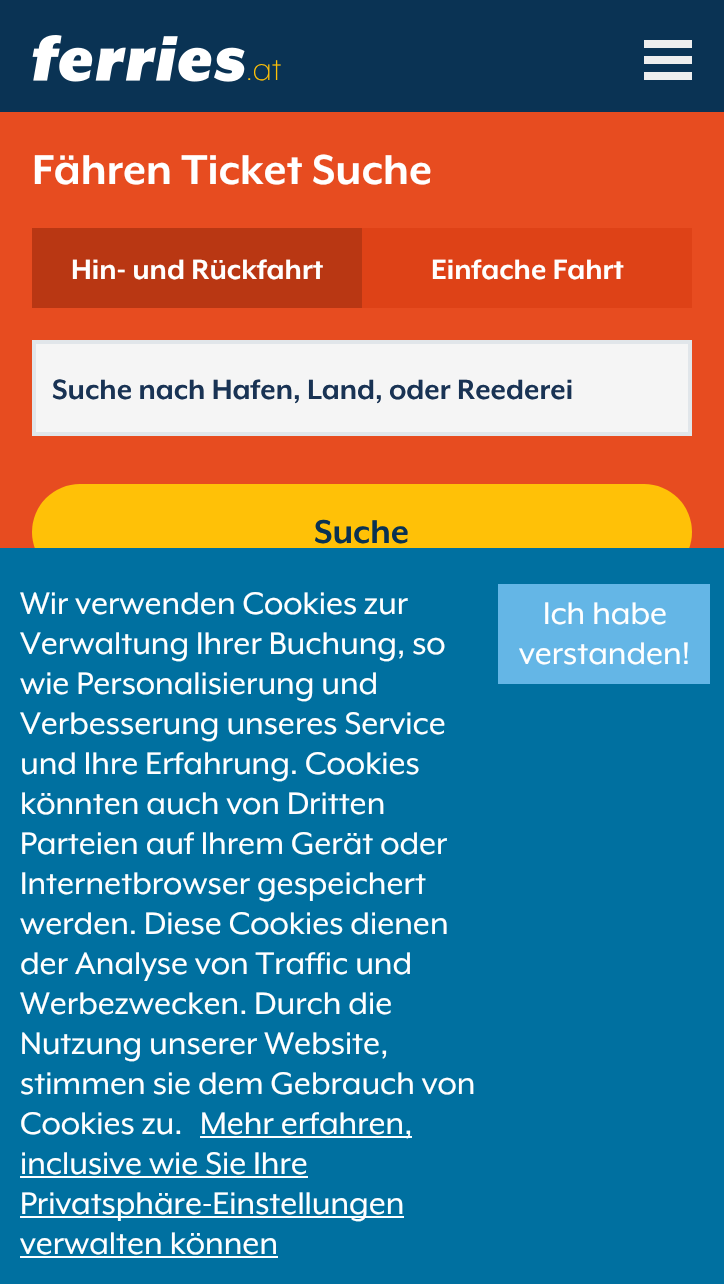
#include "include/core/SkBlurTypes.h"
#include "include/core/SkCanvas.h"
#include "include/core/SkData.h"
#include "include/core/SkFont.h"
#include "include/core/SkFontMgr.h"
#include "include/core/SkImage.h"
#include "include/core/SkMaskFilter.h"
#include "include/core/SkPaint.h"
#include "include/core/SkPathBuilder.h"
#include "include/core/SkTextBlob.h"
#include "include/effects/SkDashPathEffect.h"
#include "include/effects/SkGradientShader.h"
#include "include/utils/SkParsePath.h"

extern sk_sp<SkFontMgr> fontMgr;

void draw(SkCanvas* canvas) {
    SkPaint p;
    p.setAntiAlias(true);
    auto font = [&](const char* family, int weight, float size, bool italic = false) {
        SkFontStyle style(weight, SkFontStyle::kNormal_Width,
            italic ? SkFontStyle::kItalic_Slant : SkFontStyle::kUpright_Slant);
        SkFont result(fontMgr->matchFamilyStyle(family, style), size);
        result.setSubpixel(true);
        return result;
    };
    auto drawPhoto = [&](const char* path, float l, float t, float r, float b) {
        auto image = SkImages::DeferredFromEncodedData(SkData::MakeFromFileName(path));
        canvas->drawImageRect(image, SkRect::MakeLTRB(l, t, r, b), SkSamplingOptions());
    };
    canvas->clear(0xFFE74C20);
    p.setColor(0xFF0A3354);
    canvas->drawRect(SkRect::MakeLTRB(0, 0, 724, 112), p);
    drawPhoto("media/1.png", 32, 35, 245, 82);
    auto font1 = font("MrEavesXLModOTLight", 300, 36);
    p.setColor(0xFFFFC107);
    canvas->drawString(".at", 246, 80, font1, p);
    {
        const struct { float l, t, r, b; SkColor color; } items[] = {
            {644, 40, 692, 48, 0xFFEEEEEE},
            {644, 56, 692, 64, 0xFFEEEEEE},
            {644, 72, 692, 80, 0xFFEEEEEE},
        };
        for (auto [l, t, r, b, color] : items) {
            p.setColor(color);
            canvas->drawRect(SkRect::MakeLTRB(l, t, r, b), p);
        }
    }
    auto font2 = font("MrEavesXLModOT", 700, 48);
    p.setColor(0xFFFFFFFF);
    canvas->drawString("Fähren Ticket Suche", 32, 184, font2, p);
    p.setColor(0xFFB93713);
    canvas->drawRect(SkRect::MakeLTRB(32, 228, 362, 308), p);
    auto font3 = font("MrEavesXLModOT", 700, 32);
    p.setColor(0xFFFFFFFF);
    canvas->drawString("Hin- und Rückfahrt", 71, 279, font3, p);
    p.setColor(0xFFDE4217);
    canvas->drawRect(SkRect::MakeLTRB(362, 228, 692, 308), p);
    p.setColor(0xFFFFFFFF);
    canvas->drawString("Einfache Fahrt", 431, 279, font3, p);
    p.setColor(0xFFF5F5F5);
    canvas->drawRect(SkRect::MakeLTRB(34, 342, 690, 434), p);
    p.setStyle(SkPaint::kStroke_Style);
    p.setStrokeWidth(4);
    p.setColor(0xFFE1E6EA);
    canvas->drawRect(SkRect::MakeLTRB(34, 342, 690, 434), p);
    p.setStyle(SkPaint::kFill_Style);
    p.setColor(0xFF193354);
    canvas->drawString("Suche nach Hafen, Land, oder Reederei", 52, 399, font3, p);
    p.setColor(0xFFFFC107);
    canvas->drawRoundRect(SkRect::MakeLTRB(32, 484, 692, 580), 48, 48, p);
    auto font4 = font("MrEavesXLModOT", 700, 38);
    p.setColor(0xFF0A3252);
    canvas->drawString("Suche", 314, 543, font4, p);
    p.setColor(0xFF0070A0);
    canvas->drawRect(SkRect::MakeLTRB(0, 548, 724, 1284), p);
    auto font5 = font("MrEavesXLModOT", 400, 36);
    p.setColor(0xFFFFFFFF);
    {
        const struct { const char* s; float x, y; } items[] = {
            {"Wir verwenden Cookies zur", 20, 614},
            {"Verwaltung Ihrer Buchung, so", 20, 654},
            {"wie Personalisierung und", 20, 694},
            {"Verbesserung unseres Service", 20, 734},
            {"und Ihre Erfahrung. Cookies", 20, 774},
            {"könnten auch von Dritten", 20, 814},
            {"Parteien auf Ihrem Gerät oder", 20, 854},
            {"Internetbrowser gespeichert", 20, 894},
            {"werden. Diese Cookies dienen", 20, 934},
            {"der Analyse von Traffic und", 20, 974},
            {"Werbezwecken. Durch die", 20, 1014},
            {"Nutzung unserer Website,", 20, 1054},
            {"stimmen sie dem Gebrauch von", 20, 1094},
            {"Cookies zu.", 20, 1134},
        };
        for (auto [s, x, y] : items) {
            canvas->drawString(s, x, y, font5, p);
        }
    }
    canvas->drawRect(SkRect::MakeLTRB(200, 1136, 412, 1138), p);
    canvas->drawString("Mehr erfahren,", 200, 1134, font5, p);
    canvas->drawString("inclusive wie Sie Ihre", 20, 1174, font5, p);
    canvas->drawRect(SkRect::MakeLTRB(20, 1176, 308, 1178), p);
    canvas->drawRect(SkRect::MakeLTRB(20, 1216, 404, 1218), p);
    canvas->drawString("Privatsphäre-Einstellungen", 20, 1214, font5, p);
    canvas->drawString("verwalten können", 20, 1254, font5, p);
    canvas->drawRect(SkRect::MakeLTRB(20, 1256, 278, 1258), p);
    p.setColor(0xFF64B6E6);
    canvas->drawRect(SkRect::MakeLTRB(498, 584, 710, 684), p);
    p.setColor(0xFFFFFFFF);
    canvas->drawString("Ich habe", 543, 624, font5, p);
    canvas->drawString("verstanden!", 519, 664, font5, p);
}
